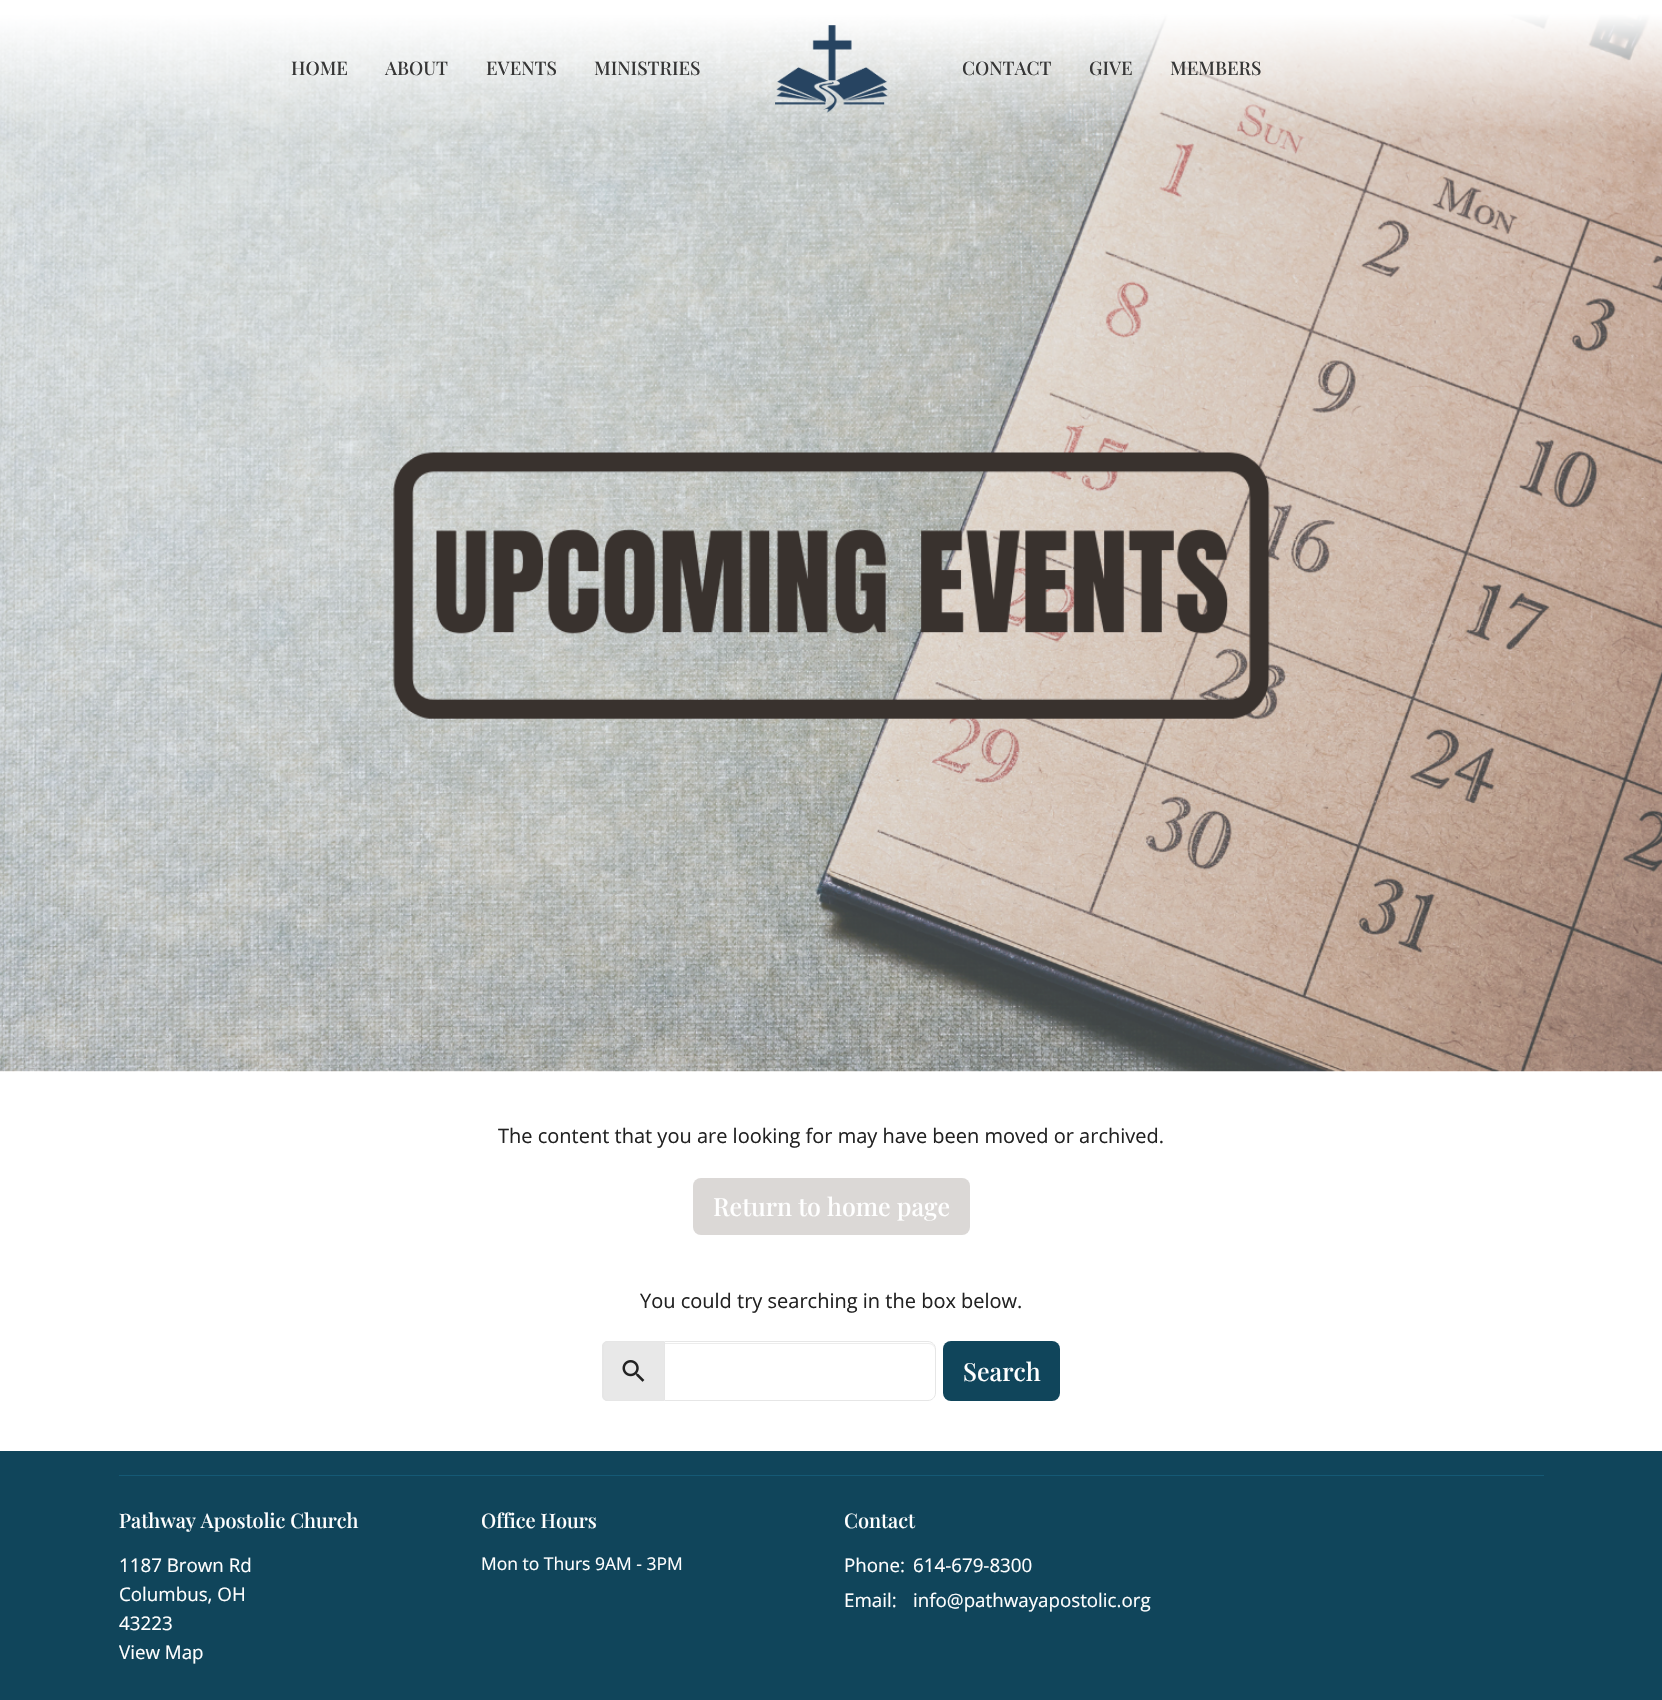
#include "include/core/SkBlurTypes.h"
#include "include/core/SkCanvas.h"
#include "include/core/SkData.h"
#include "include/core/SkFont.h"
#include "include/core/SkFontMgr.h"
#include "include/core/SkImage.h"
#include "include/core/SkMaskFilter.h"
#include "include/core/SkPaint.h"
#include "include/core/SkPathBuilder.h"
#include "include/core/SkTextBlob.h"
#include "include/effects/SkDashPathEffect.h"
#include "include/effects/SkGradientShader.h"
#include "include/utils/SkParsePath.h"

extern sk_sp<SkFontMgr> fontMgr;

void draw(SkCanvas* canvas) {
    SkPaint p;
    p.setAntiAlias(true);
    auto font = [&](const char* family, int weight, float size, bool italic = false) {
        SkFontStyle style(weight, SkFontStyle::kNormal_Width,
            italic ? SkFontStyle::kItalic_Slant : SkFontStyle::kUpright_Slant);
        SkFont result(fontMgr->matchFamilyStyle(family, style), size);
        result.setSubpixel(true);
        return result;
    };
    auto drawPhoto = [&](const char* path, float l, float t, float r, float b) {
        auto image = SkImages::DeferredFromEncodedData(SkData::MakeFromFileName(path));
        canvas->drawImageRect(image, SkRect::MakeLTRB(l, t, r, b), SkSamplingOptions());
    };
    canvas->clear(0xFFFFFFFF);
    drawPhoto("media/1.png", 0, 0, 1662, 1072);
    auto font1 = font("Playfair Display", 500, 18.75f);
    p.setColor(0xFF363636);
    {
        const struct { const char* s; float x, y; } items[] = {
            {"HOME", 291, 75},
            {"ABOUT", 385, 75},
            {"EVENTS", 486, 75},
            {"MINISTRIES", 594, 75},
        };
        for (auto [s, x, y] : items) {
            canvas->drawString(s, x, y, font1, p);
        }
    }
    drawPhoto("media/2.png", 775, 25, 888, 113);
    {
        const struct { const char* s; float x, y; } items[] = {
            {"CONTACT", 962, 75},
            {"GIVE", 1089, 75},
            {"MEMBERS", 1170, 75},
        };
        for (auto [s, x, y] : items) {
            canvas->drawString(s, x, y, font1, p);
        }
    }
    auto font2 = font("Open Sans", 400, 20);
    p.setColor(0xFF222222);
    canvas->drawString("The content that you are looking for may have been moved or archived.", 498, 1143, font2, p);
    p.setColor(0xFFDBD8D6);
    canvas->drawRoundRect(SkRect::MakeLTRB(693, 1178, 970, 1235), 8, 8, p);
    auto font3 = font("Playfair Display", 500, 25);
    p.setColor(0xFFFFFFFF);
    canvas->drawString("Return to home page", 713, 1216, font3, p);
    p.setColor(0xFF222222);
    canvas->drawString("You could try searching in the box below.", 640, 1308, font2, p);
    p.setColor(0xFFE8E8E8);
    canvas->drawPath(SkPathBuilder().moveTo(608, 1341).lineTo(664, 1341).lineTo(664, 1401).lineTo(608, 1401).cubicTo(605, 1401, 603, 1399, 603, 1396).lineTo(603, 1346).cubicTo(603, 1343, 605, 1341, 608, 1341).close().detach(), p);
    p.setColor(0xFFE6E6E6);
    canvas->drawPath(SkPathBuilder(SkPathFillType::kEvenOdd).moveTo(608, 1341).lineTo(664, 1341).lineTo(664, 1401).lineTo(608, 1401).cubicTo(605, 1401, 602, 1399, 602, 1396).lineTo(602, 1346).cubicTo(602, 1343, 605, 1341, 608, 1341).close().moveTo(608, 1342).lineTo(664, 1342).lineTo(664, 1400).lineTo(608, 1400).cubicTo(605, 1400, 604, 1398, 604, 1396).lineTo(604, 1346).cubicTo(604, 1344, 605, 1342, 608, 1342).close().detach(), p);
    drawPhoto("media/3.png", 622, 1360, 645, 1382);
    p.setColor(0xFFECECEC);
    canvas->drawPath(SkPathBuilder().moveTo(665, 1344).lineTo(929, 1344).cubicTo(932, 1344, 935, 1347, 935, 1350).lineTo(935, 1349).cubicTo(935, 1346, 932, 1343, 929, 1343).lineTo(665, 1343).close().detach(), p);
    p.setStyle(SkPaint::kStroke_Style);
    p.setStrokeWidth(1);
    p.setColor(0xFFE6E6E6);
    canvas->drawPath(SkPathBuilder().moveTo(664.5f, 1341.5f).lineTo(928, 1341.5f).cubicTo(932, 1341.5f, 935.5f, 1345, 935.5f, 1349).lineTo(935.5f, 1393).cubicTo(935.5f, 1397, 932, 1400.5f, 928, 1400.5f).lineTo(664.5f, 1400.5f).close().detach(), p);
    p.setStyle(SkPaint::kFill_Style);
    p.setColor(0xFF10455B);
    canvas->drawRoundRect(SkRect::MakeLTRB(943, 1341, 1060, 1401), 8, 8, p);
    p.setColor(0xFFFFFFFF);
    canvas->drawString("Search", 963, 1381, font3, p);
    p.setColor(0xFF10455B);
    canvas->drawRect(SkRect::MakeLTRB(0, 1451, 1662, 1700), p);
    p.setColor(0xFF155975);
    canvas->drawRect(SkRect::MakeLTRB(119, 1475, 1544, 1476), p);
    auto font4 = font("Playfair Display", 500, 20);
    p.setColor(0xFFFFFFFF);
    canvas->drawString("Pathway Apostolic Church", 119, 1528, font4, p);
    auto font5 = font("Open Sans", 400, 18.75f);
    {
        const struct { const char* s; float x, y; } items[] = {
            {"1187 Brown Rd", 119, 1572},
            {"Columbus, OH", 119, 1601},
            {"43223", 119, 1630},
            {"View Map", 119, 1659},
        };
        for (auto [s, x, y] : items) {
            canvas->drawString(s, x, y, font5, p);
        }
    }
    canvas->drawString("Office Hours", 481, 1528, font4, p);
    auto font6 = font("Open Sans", 400, 17.5f);
    canvas->drawString("Mon to Thurs 9AM - 3PM", 481, 1570, font6, p);
    canvas->drawString("Contact", 844, 1528, font4, p);
    {
        const struct { const char* s; float x, y; } items[] = {
            {"Phone:", 844, 1572},
            {"614-679-8300", 913, 1572},
            {"Email:", 844, 1607},
            {"info@pathwayapostolic.org", 913, 1607},
        };
        for (auto [s, x, y] : items) {
            canvas->drawString(s, x, y, font5, p);
        }
    }
}
